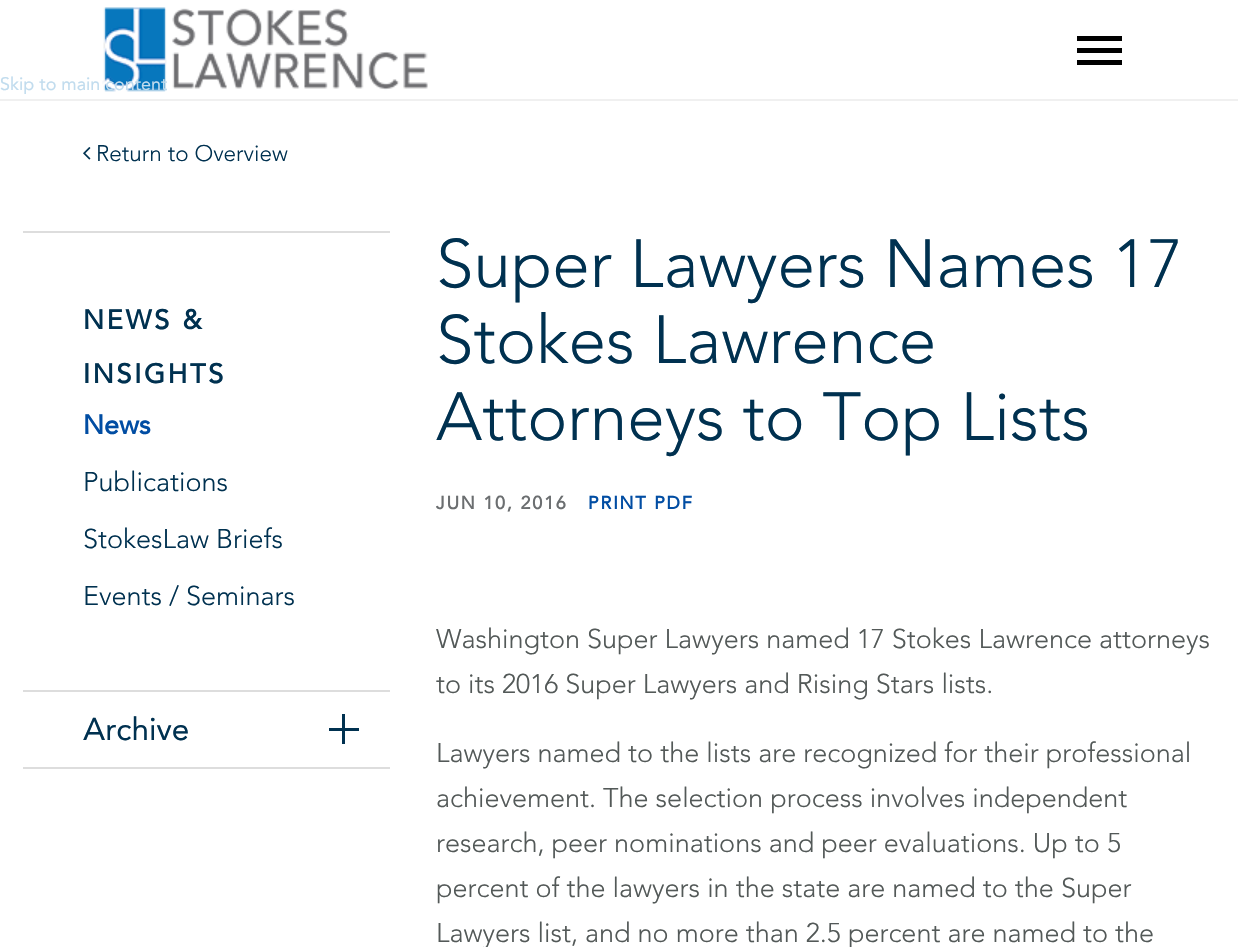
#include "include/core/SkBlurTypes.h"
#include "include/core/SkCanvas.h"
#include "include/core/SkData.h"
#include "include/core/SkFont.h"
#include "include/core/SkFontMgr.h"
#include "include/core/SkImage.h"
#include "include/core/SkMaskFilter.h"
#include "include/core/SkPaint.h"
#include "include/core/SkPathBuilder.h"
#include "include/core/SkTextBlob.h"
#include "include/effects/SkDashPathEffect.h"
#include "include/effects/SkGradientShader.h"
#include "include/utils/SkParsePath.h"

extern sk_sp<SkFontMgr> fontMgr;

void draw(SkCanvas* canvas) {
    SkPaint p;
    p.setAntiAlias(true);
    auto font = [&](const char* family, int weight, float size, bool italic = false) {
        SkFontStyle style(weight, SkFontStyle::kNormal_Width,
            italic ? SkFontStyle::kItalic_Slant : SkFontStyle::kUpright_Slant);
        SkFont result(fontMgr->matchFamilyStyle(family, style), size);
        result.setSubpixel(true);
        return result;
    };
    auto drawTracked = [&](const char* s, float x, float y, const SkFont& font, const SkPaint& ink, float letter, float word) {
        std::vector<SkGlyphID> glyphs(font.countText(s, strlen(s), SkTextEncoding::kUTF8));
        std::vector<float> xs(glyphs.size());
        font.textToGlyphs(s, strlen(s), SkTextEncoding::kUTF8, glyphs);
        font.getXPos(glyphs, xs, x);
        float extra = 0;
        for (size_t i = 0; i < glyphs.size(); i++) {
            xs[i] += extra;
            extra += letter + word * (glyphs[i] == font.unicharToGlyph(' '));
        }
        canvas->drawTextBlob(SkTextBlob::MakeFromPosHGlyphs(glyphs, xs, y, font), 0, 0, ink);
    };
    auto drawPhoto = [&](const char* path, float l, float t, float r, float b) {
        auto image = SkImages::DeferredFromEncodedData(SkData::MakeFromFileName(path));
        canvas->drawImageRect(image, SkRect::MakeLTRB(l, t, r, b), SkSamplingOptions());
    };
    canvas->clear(0xFFFFFFFF);
    p.setColor(0xFFF0F0F0);
    canvas->drawRect(SkRect::MakeLTRB(0, 99, 1238, 101), p);
    drawPhoto("media/1.png", 102, 7, 428, 92);
    auto font1 = font("Avenir", 400, 18);
    p.setColor(0xFFC1DCEE);
    canvas->drawString("Skip to main content", 0, 90, font1, p);
    {
        const struct { float l, t, r, b; SkColor color; } items[] = {
            {1077, 48, 1122, 53, 0xFF000000},
            {1077, 36, 1122, 41, 0xFF000000},
            {1077, 60, 1122, 65, 0xFF000000},
        };
        for (auto [l, t, r, b, color] : items) {
            p.setColor(color);
            canvas->drawRect(SkRect::MakeLTRB(l, t, r, b), p);
        }
    }
    drawPhoto("media/2.png", 83, 147, 91, 160);
    auto font2 = font("Avenir", 300, 22.5f);
    p.setColor(0xFF003150);
    canvas->drawString("Return to Overview", 96, 161, font2, p);
    p.setColor(0xFFDDDDDD);
    canvas->drawRect(SkRect::MakeLTRB(23, 231, 390, 233), p);
    canvas->drawRect(SkRect::MakeLTRB(23, 690, 390, 692), p);
    auto font3 = font("Avenir", 700, 27);
    p.setColor(0xFF003150);
    drawTracked("NEWS &", 83, 329, font3, p, 2.75f, 0);
    drawTracked("INSIGHTS", 83, 383, font3, p, 2.75f, 0);
    p.setColor(0xFF014DA3);
    canvas->drawString("News", 83, 434, font3, p);
    auto font4 = font("Avenir", 300, 27);
    p.setColor(0xFF003150);
    {
        const struct { const char* s; float x, y; } items[] = {
            {"Publications", 83, 491},
            {"StokesLaw Briefs", 83, 548},
            {"Events / Seminars", 83, 605},
        };
        for (auto [s, x, y] : items) {
            canvas->drawString(s, x, y, font4, p);
        }
    }
    p.setColor(0xFFDDDDDD);
    canvas->drawRect(SkRect::MakeLTRB(23, 767, 390, 769), p);
    auto font5 = font("Avenir", 400, 31.5f);
    p.setColor(0xFF003150);
    canvas->drawString("Archive", 83, 740, font5, p);
    canvas->drawRect(SkRect::MakeLTRB(342, 714, 345, 744), p);
    canvas->drawRect(SkRect::MakeLTRB(329, 728, 359, 731), p);
    auto font6 = font("Avenir", 300, 67.5f);
    {
        const struct { const char* s; float x, y; } items[] = {
            {"Super Lawyers Names 17", 436, 287},
            {"Stokes Lawrence", 436, 363},
            {"Attorneys to Top Lists", 436, 440},
        };
        for (auto [s, x, y] : items) {
            canvas->drawString(s, x, y, font6, p);
        }
    }
    auto font7 = font("Avenir", 700, 18);
    p.setColor(0xFF6B6E70);
    drawTracked("JUN 10, 2016", 436, 509, font7, p, 1.75f, 0);
    p.setColor(0xFF014DA3);
    drawTracked("PRINT PDF", 588, 509, font7, p, 1.75f, 0);
    p.setColor(0xFF535958);
    {
        const struct { const char* s; float x, y; } items[] = {
            {"Washington Super Lawyers named 17 Stokes Lawrence attorneys", 436, 648},
            {"to its 2016 Super Lawyers and Rising Stars lists.", 436, 693},
            {"Lawyers named to the lists are recognized for their professional", 436, 762},
            {"achievement. The selection process involves independent", 436, 807},
            {"research, peer nominations and peer evaluations. Up to 5", 436, 852},
            {"percent of the lawyers in the state are named to the Super", 436, 897},
            {"Lawyers list, and no more than 2.5 percent are named to the", 436, 942},
        };
        for (auto [s, x, y] : items) {
            canvas->drawString(s, x, y, font4, p);
        }
    }
}
